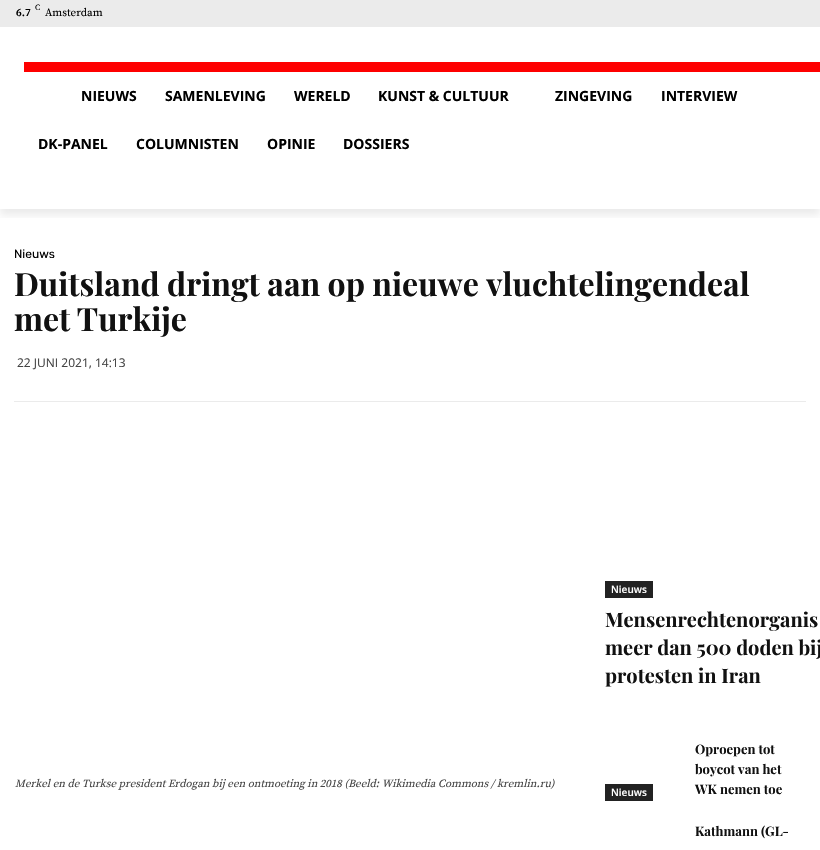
#include "include/core/SkBlurTypes.h"
#include "include/core/SkCanvas.h"
#include "include/core/SkData.h"
#include "include/core/SkFont.h"
#include "include/core/SkFontMgr.h"
#include "include/core/SkImage.h"
#include "include/core/SkMaskFilter.h"
#include "include/core/SkPaint.h"
#include "include/core/SkPathBuilder.h"
#include "include/core/SkTextBlob.h"
#include "include/effects/SkDashPathEffect.h"
#include "include/effects/SkGradientShader.h"
#include "include/utils/SkParsePath.h"

extern sk_sp<SkFontMgr> fontMgr;

void draw(SkCanvas* canvas) {
    SkPaint p;
    p.setAntiAlias(true);
    auto font = [&](const char* family, int weight, float size, bool italic = false) {
        SkFontStyle style(weight, SkFontStyle::kNormal_Width,
            italic ? SkFontStyle::kItalic_Slant : SkFontStyle::kUpright_Slant);
        SkFont result(fontMgr->matchFamilyStyle(family, style), size);
        result.setSubpixel(true);
        return result;
    };
    auto drawTracked = [&](const char* s, float x, float y, const SkFont& font, const SkPaint& ink, float letter, float word) {
        std::vector<SkGlyphID> glyphs(font.countText(s, strlen(s), SkTextEncoding::kUTF8));
        std::vector<float> xs(glyphs.size());
        font.textToGlyphs(s, strlen(s), SkTextEncoding::kUTF8, glyphs);
        font.getXPos(glyphs, xs, x);
        float extra = 0;
        for (size_t i = 0; i < glyphs.size(); i++) {
            xs[i] += extra;
            extra += letter + word * (glyphs[i] == font.unicharToGlyph(' '));
        }
        canvas->drawTextBlob(SkTextBlob::MakeFromPosHGlyphs(glyphs, xs, y, font), 0, 0, ink);
    };
    canvas->clear(0xFFFFFFFF);
    p.setColor(0xFFEBEBEB);
    canvas->drawRect(SkRect::MakeLTRB(0, 0, 820, 27), p);
    p.setColor(0xFFFE0000);
    canvas->drawRect(SkRect::MakeLTRB(24, 62, 820, 72), p);
    canvas->save();
    canvas->clipRect(SkRect::MakeLTRB(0, 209, 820, 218));
    p.setColor(0x14000000);
    p.setMaskFilter(SkMaskFilter::MakeBlur(kNormal_SkBlurStyle, 4));
    canvas->drawRect(SkRect::MakeLTRB(0, 6, 820, 215), p);
    p.setMaskFilter(nullptr);
    canvas->restore();
    auto font1 = font("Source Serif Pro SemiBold", 600, 11);
    p.setColor(0xFF000000);
    canvas->drawString("6.7", 16, 16, font1, p);
    auto font2 = font("Source Serif Pro", 400, 8);
    canvas->drawString("C", 35, 10, font2, p);
    auto font3 = font("Source Serif Pro", 400, 11);
    canvas->drawString("Amsterdam", 45, 16, font3, p);
    auto font4 = font("Open Sans", 700, 14);
    {
        const struct { const char* s; float x, y; } items[] = {
            {"NIEUWS", 81, 101},
            {"SAMENLEVING", 165, 101},
            {"WERELD", 294, 101},
            {"KUNST & CULTUUR", 378, 101},
            {"ZINGEVING", 555, 101},
            {"INTERVIEW", 661, 101},
            {"DK-PANEL", 38, 149},
            {"COLUMNISTEN", 136, 149},
            {"OPINIE", 267, 149},
            {"DOSSIERS", 343, 149},
        };
        for (auto [s, x, y] : items) {
            canvas->drawString(s, x, y, font4, p);
        }
    }
    auto font5 = font("Rubik", 300, 12);
    canvas->drawString("Nieuws", 14, 258, font5, p);
    auto font6 = font("Playfair Display", 700, 32);
    p.setColor(0xFF111111);
    canvas->drawString("Duitsland dringt aan op nieuwe vluchtelingendeal", 14, 296, font6, p);
    drawTracked("met Turkije", 14, 331, font6, p, 0, -1);
    auto font7 = font("Open Sans", 400, 12);
    p.setColor(0xFF444444);
    canvas->drawString("22 JUNI 2021, 14:13", 17, 367, font7, p);
    p.setColor(0xFFEBEBEB);
    canvas->drawRect(SkRect::MakeLTRB(14, 401, 806, 402), p);
    auto font8 = font("Source Serif Pro", 400, 11, true);
    p.setColor(0xFF444444);
    canvas->drawString("Merkel en de Turkse president Erdogan bij een ontmoeting in 2018 (Beeld: Wikimedia Commons / kremlin.ru)", 15, 787, font8, p);
    p.setColor(0xFF222222);
    canvas->drawRect(SkRect::MakeLTRB(605, 581, 653, 598), p);
    auto font9 = font("Open Sans", 600, 10);
    p.setColor(0xFFFFFFFF);
    canvas->drawString("Nieuws", 611, 593, font9, p);
    auto font10 = font("Playfair Display", 700, 20);
    p.setColor(0xFF111111);
    {
        const struct { const char* s; float x, y; } items[] = {
            {"Mensenrechtenorganis", 605, 627},
            {"meer dan 500 doden bij", 605, 655},
            {"protesten in Iran", 605, 683},
        };
        for (auto [s, x, y] : items) {
            canvas->drawString(s, x, y, font10, p);
        }
    }
    p.setColor(0xFF222222);
    canvas->drawRect(SkRect::MakeLTRB(605, 784, 653, 801), p);
    p.setColor(0xFFFFFFFF);
    canvas->drawString("Nieuws", 611, 796, font9, p);
    auto font11 = font("Playfair Display", 700, 13);
    p.setColor(0xFF111111);
    {
        const struct { const char* s; float x, y; } items[] = {
            {"Oproepen tot", 695, 754},
            {"boycot van het", 695, 774},
            {"WK nemen toe", 695, 794},
            {"Kathmann (GL-", 695, 836},
        };
        for (auto [s, x, y] : items) {
            canvas->drawString(s, x, y, font11, p);
        }
    }
}
